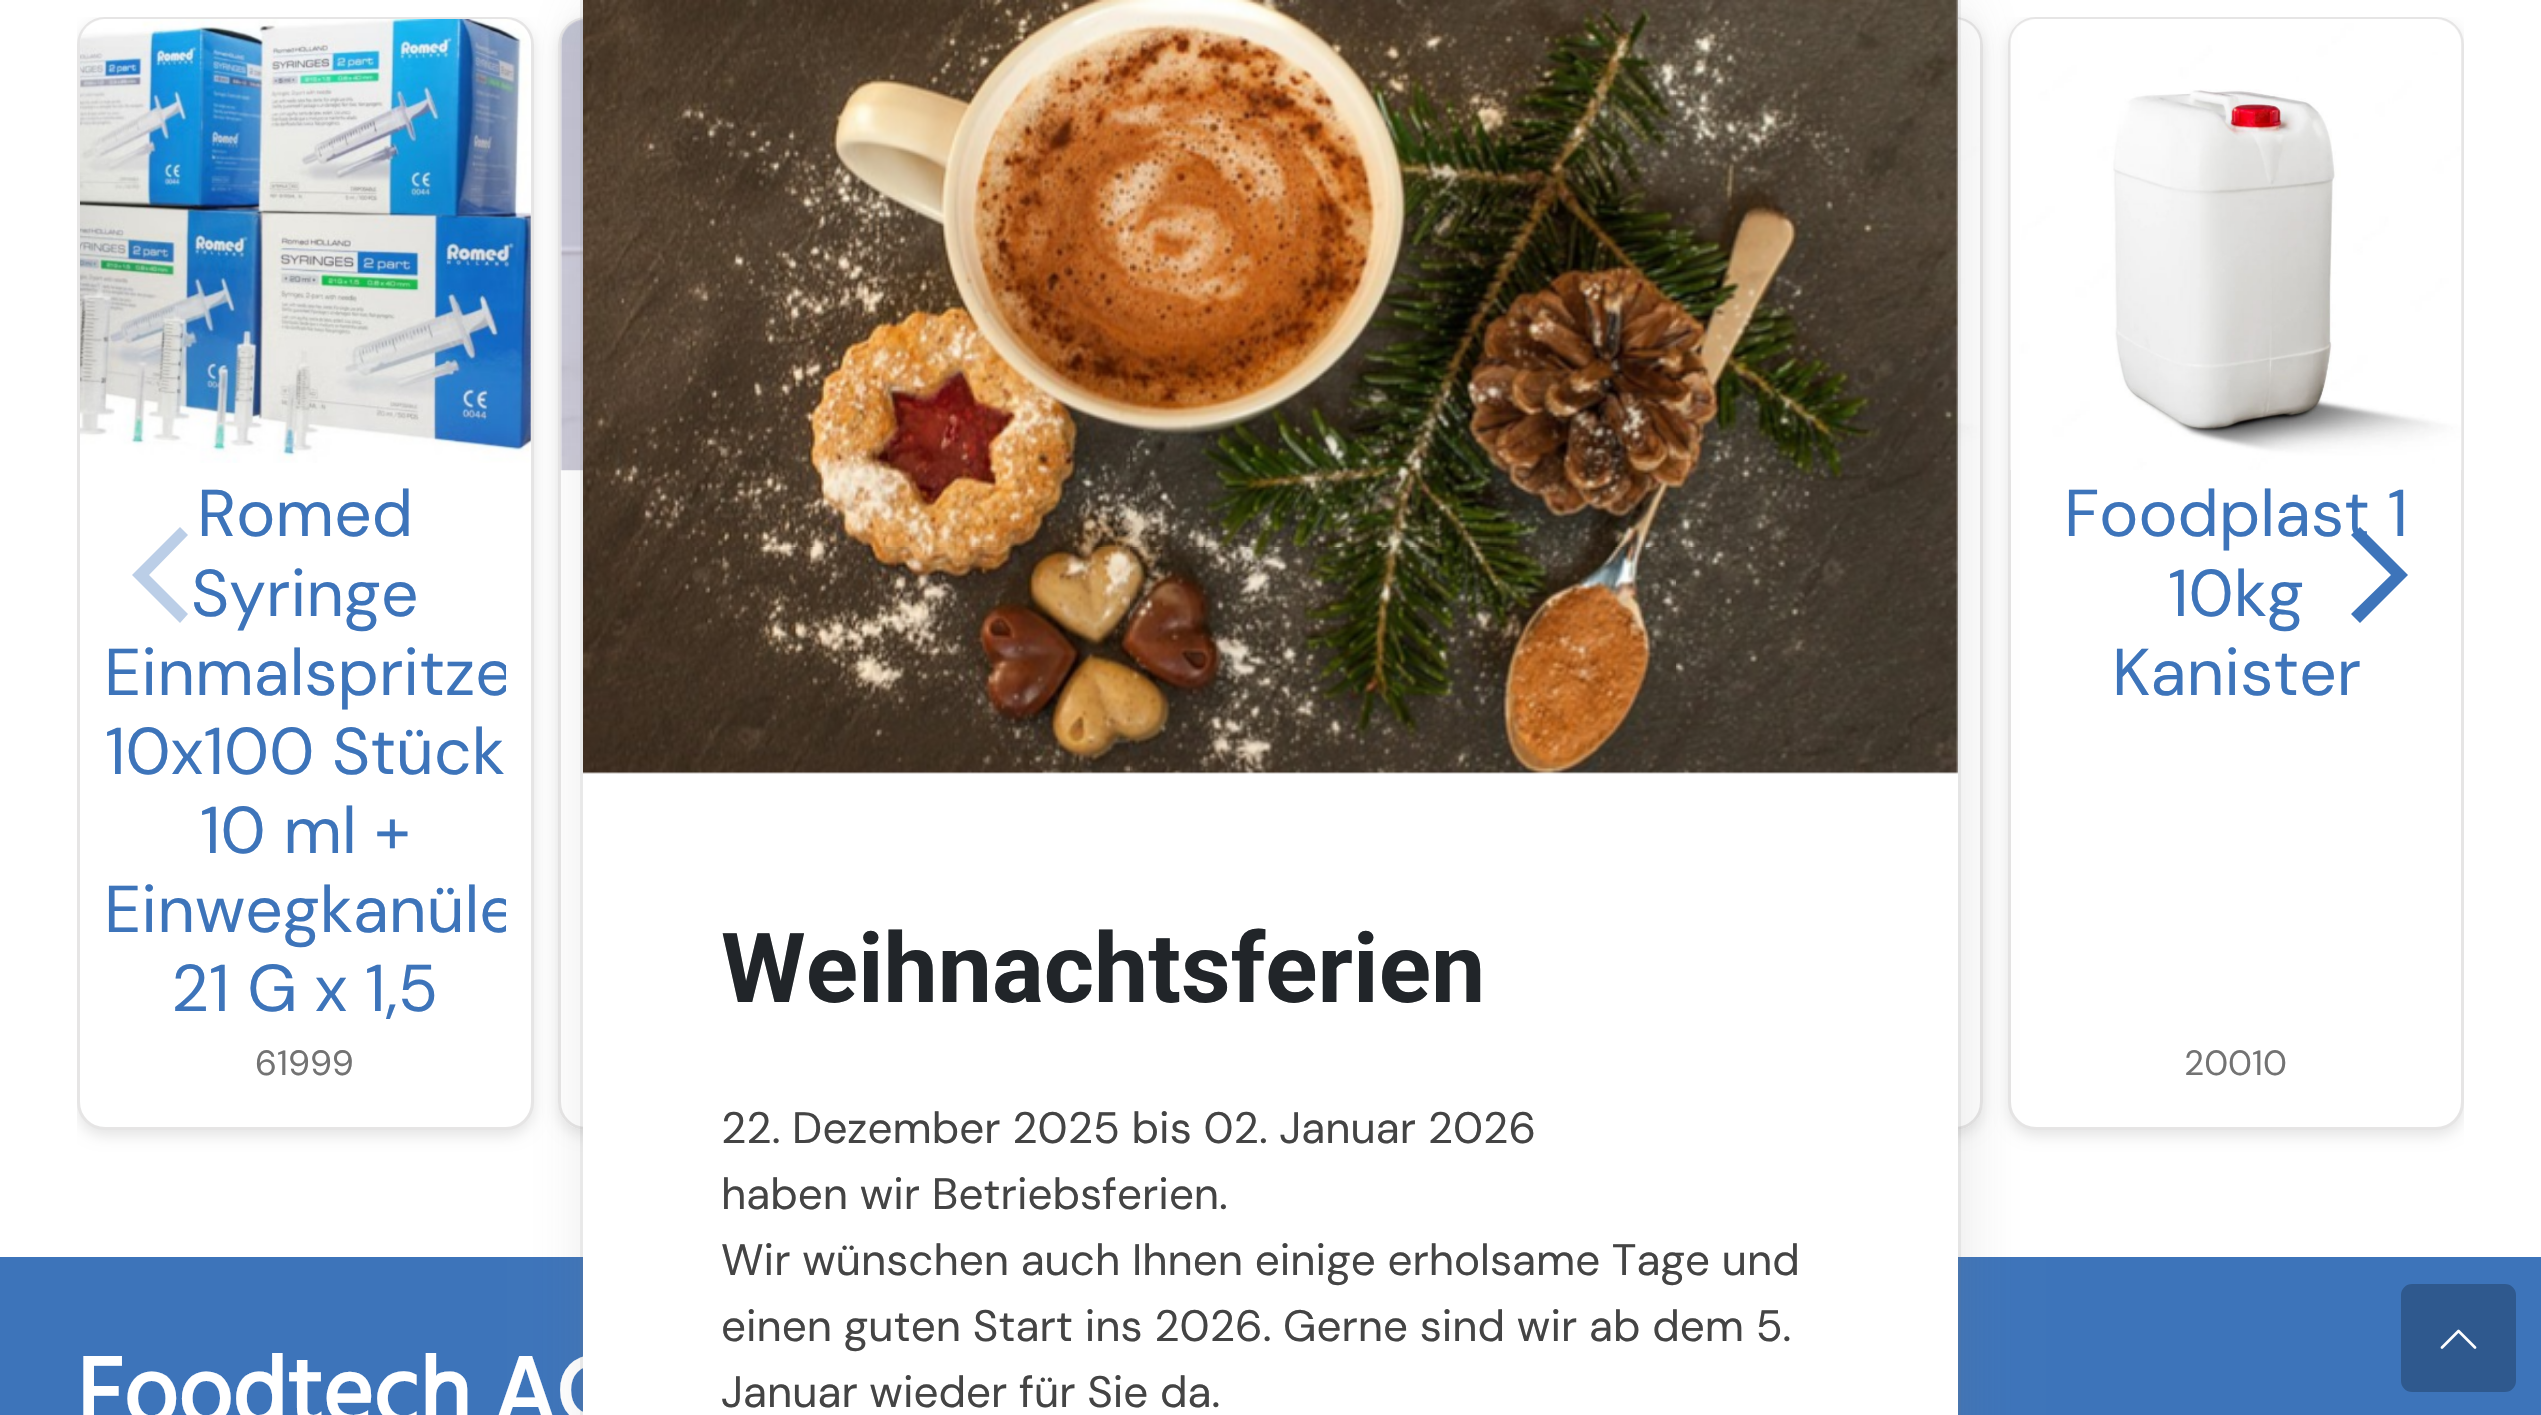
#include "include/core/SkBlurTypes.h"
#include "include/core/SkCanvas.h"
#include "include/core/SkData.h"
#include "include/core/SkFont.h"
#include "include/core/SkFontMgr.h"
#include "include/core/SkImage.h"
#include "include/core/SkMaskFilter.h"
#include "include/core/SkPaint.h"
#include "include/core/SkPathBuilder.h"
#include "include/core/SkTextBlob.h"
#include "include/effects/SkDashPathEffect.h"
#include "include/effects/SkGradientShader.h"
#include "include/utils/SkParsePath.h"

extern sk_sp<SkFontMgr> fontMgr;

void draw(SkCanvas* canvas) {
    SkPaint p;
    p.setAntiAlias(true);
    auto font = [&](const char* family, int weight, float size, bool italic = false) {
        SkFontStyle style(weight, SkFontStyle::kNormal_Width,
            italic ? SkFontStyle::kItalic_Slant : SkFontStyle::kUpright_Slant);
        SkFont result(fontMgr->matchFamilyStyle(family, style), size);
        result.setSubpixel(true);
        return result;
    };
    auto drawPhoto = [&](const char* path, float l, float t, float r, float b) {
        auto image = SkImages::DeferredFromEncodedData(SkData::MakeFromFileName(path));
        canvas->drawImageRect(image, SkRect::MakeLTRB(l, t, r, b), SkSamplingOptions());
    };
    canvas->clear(0xFFFFFFFF);
    canvas->save();
    canvas->clipRect(SkRect::MakeLTRB(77, 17, 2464, 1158));
    p.setColor(0x1A000000);
    p.setMaskFilter(SkMaskFilter::MakeBlur(kNormal_SkBlurStyle, 7));
    canvas->drawRoundRect(SkRect::MakeLTRB(77, 22, 534, 1136), 28, 28, p);
    p.setMaskFilter(nullptr);
    canvas->restore();
    p.setColor(0xFFFFFFFF);
    canvas->drawRoundRect(SkRect::MakeLTRB(78.5f, 18.5f, 532.5f, 1128.5f), 26.5f, 26.5f, p);
    p.setStyle(SkPaint::kStroke_Style);
    p.setStrokeWidth(3);
    p.setColor(0xFFE6E5E5);
    canvas->drawRoundRect(SkRect::MakeLTRB(78.5f, 18.5f, 532.5f, 1128.5f), 26.5f, 26.5f, p);
    drawPhoto("media/1.png", 80, 19, 531, 463);
    auto font1 = font("DM Sans", 400, 66);
    p.setStyle(SkPaint::kFill_Style);
    p.setColor(0xFF3D74BA);
    canvas->drawString("Romed", 197, 536, font1, p);
    canvas->drawString("Syringe", 191, 616, font1, p);
    canvas->save();
    canvas->clipRect(SkRect::MakeLTRB(105, 476, 506, 1031));
    canvas->drawString("Einmalspritze", 104, 695, font1, p);
    canvas->restore();
    canvas->drawString("10x100 Stück", 105, 774, font1, p);
    canvas->drawString("10 ml +", 200, 853, font1, p);
    canvas->save();
    canvas->clipRect(SkRect::MakeLTRB(105, 476, 506, 1031));
    canvas->drawString("Einwegkanüle", 104, 932, font1, p);
    canvas->restore();
    canvas->drawString("21 G x 1,5", 171, 1011, font1, p);
    auto font2 = font("DM Sans", 400, 35);
    p.setColor(0xFF737373);
    canvas->drawString("61999", 255, 1075, font2, p);
    canvas->save();
    canvas->clipPath(SkPathBuilder(SkPathFillType::kEvenOdd).moveTo(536, 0).lineTo(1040, 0).lineTo(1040, 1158).lineTo(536, 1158).close().moveTo(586, 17).lineTo(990, 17).cubicTo(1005.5f, 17, 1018, 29.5f, 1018, 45).lineTo(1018, 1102).cubicTo(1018, 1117.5f, 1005.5f, 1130, 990, 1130).lineTo(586, 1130).cubicTo(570.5f, 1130, 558, 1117.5f, 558, 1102).lineTo(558, 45).cubicTo(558, 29.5f, 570.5f, 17, 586, 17).close().detach(), true);
    p.setColor(0x1A000000);
    p.setMaskFilter(SkMaskFilter::MakeBlur(kNormal_SkBlurStyle, 7));
    canvas->drawRoundRect(SkRect::MakeLTRB(558, 22, 1018, 1136), 28, 28, p);
    p.setMaskFilter(nullptr);
    canvas->restore();
    p.setColor(0xFFFFFFFF);
    canvas->drawRoundRect(SkRect::MakeLTRB(559.5f, 18.5f, 1016.5f, 1128.5f), 26.5f, 26.5f, p);
    p.setStyle(SkPaint::kStroke_Style);
    p.setColor(0xFFE6E5E5);
    canvas->drawRoundRect(SkRect::MakeLTRB(559.5f, 18.5f, 1016.5f, 1128.5f), 26.5f, 26.5f, p);
    drawPhoto("media/2.png", 560, 19, 583, 471);
    canvas->save();
    canvas->clipPath(SkPathBuilder(SkPathFillType::kEvenOdd).moveTo(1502, 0).lineTo(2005, 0).lineTo(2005, 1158).lineTo(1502, 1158).close().moveTo(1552, 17).lineTo(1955, 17).cubicTo(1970.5f, 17, 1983, 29.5f, 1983, 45).lineTo(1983, 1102).cubicTo(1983, 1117.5f, 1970.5f, 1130, 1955, 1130).lineTo(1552, 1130).cubicTo(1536.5f, 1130, 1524, 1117.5f, 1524, 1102).lineTo(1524, 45).cubicTo(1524, 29.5f, 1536.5f, 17, 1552, 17).close().detach(), true);
    p.setStyle(SkPaint::kFill_Style);
    p.setColor(0x1A000000);
    p.setMaskFilter(SkMaskFilter::MakeBlur(kNormal_SkBlurStyle, 7));
    canvas->drawRoundRect(SkRect::MakeLTRB(1524, 22, 1983, 1136), 28, 28, p);
    p.setMaskFilter(nullptr);
    canvas->restore();
    p.setColor(0xFFFFFFFF);
    canvas->drawRoundRect(SkRect::MakeLTRB(1525.5f, 18.5f, 1981.5f, 1128.5f), 26.5f, 26.5f, p);
    p.setStyle(SkPaint::kStroke_Style);
    p.setColor(0xFFE6E5E5);
    canvas->drawRoundRect(SkRect::MakeLTRB(1525.5f, 18.5f, 1981.5f, 1128.5f), 26.5f, 26.5f, p);
    drawPhoto("media/3.png", 1958, 19, 1980, 470);
    canvas->save();
    canvas->clipRect(SkRect::MakeLTRB(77, 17, 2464, 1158));
    p.setStyle(SkPaint::kFill_Style);
    p.setColor(0x1A000000);
    p.setMaskFilter(SkMaskFilter::MakeBlur(kNormal_SkBlurStyle, 7));
    canvas->drawRoundRect(SkRect::MakeLTRB(2008, 22, 2464, 1136), 28, 28, p);
    p.setMaskFilter(nullptr);
    canvas->restore();
    p.setColor(0xFFFFFFFF);
    canvas->drawRoundRect(SkRect::MakeLTRB(2009.5f, 18.5f, 2462.5f, 1128.5f), 26.5f, 26.5f, p);
    p.setStyle(SkPaint::kStroke_Style);
    p.setColor(0xFFE6E5E5);
    canvas->drawRoundRect(SkRect::MakeLTRB(2009.5f, 18.5f, 2462.5f, 1128.5f), 26.5f, 26.5f, p);
    drawPhoto("media/4.png", 2010, 19, 2462, 470);
    p.setStyle(SkPaint::kFill_Style);
    p.setColor(0xFF3D74BA);
    {
        const struct { const char* s; float x, y; } items[] = {
            {"Foodplast 1", 2064, 536},
            {"10kg", 2168, 616},
            {"Kanister", 2112, 695},
        };
        for (auto [s, x, y] : items) {
            canvas->drawString(s, x, y, font1, p);
        }
    }
    p.setColor(0xFF737373);
    canvas->drawString("20010", 2184, 1075, font2, p);
    p.setColor(0xFFBBCEE7);
    canvas->drawPath(SkPathBuilder().moveTo(188, 614).lineTo(180, 623).lineTo(132, 575).lineTo(180, 527).lineTo(188, 535).lineTo(149, 575).close().detach(), p);
    p.setColor(0xFF3D74BA);
    canvas->drawPath(SkPathBuilder().moveTo(2351, 614).lineTo(2360, 623).lineTo(2408, 575).lineTo(2360, 527).lineTo(2351, 535).lineTo(2391, 575).close().detach(), p);
    canvas->drawRect(SkRect::MakeLTRB(0, 1257, 2541, 1415), p);
    auto font3 = font("Hind Siliguri", 700, 96.75f);
    p.setColor(0xFFFFFFFF);
    canvas->drawString("Foodtech AG", 76, 1424, font3, p);
    p.setColor(0x2B797979);
    p.setMaskFilter(SkMaskFilter::MakeBlur(kNormal_SkBlurStyle, 27.5f));
    canvas->drawRect(SkRect::MakeLTRB(589, 6, 1964, 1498), p);
    p.setMaskFilter(nullptr);
    p.setColor(0xFFFFFFFF);
    canvas->drawRect(SkRect::MakeLTRB(583, 773, 1958, 1415), p);
    p.setStyle(SkPaint::kStroke_Style);
    p.setColor(0x1A797979);
    canvas->drawRect(SkRect::MakeLTRB(581.5f, -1.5f, 1959.5f, 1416.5f), p);
    p.setStyle(SkPaint::kFill_Style);
    p.setColor(0xFFF6F6F6);
    canvas->drawRect(SkRect::MakeLTRB(583, 0, 1958, 773), p);
    drawPhoto("media/5.png", 583, 0, 1958, 774);
    auto font4 = font("Roboto", 700, 96.75f);
    p.setColor(0xFF212529);
    canvas->drawString("Weihnachtsferien", 721, 1002, font4, p);
    auto font5 = font("DM Sans", 400, 44);
    p.setColor(0xFF444444);
    {
        const struct { const char* s; float x, y; } items[] = {
            {"22. Dezember 2025 bis 02. Januar 2026", 721, 1143},
            {"haben wir Betriebsferien.", 721, 1209},
            {"Wir wünschen auch Ihnen einige erholsame Tage und", 721, 1275},
            {"einen guten Start ins 2026. Gerne sind wir ab dem 5.", 721, 1341},
            {"Januar wieder für Sie da.", 721, 1407},
        };
        for (auto [s, x, y] : items) {
            canvas->drawString(s, x, y, font5, p);
        }
    }
    p.setColor(0xFF2F598E);
    canvas->drawRoundRect(SkRect::MakeLTRB(2402.5f, 1285.5f, 2514.5f, 1390.5f), 9.5f, 9.5f, p);
    p.setStyle(SkPaint::kStroke_Style);
    canvas->drawRoundRect(SkRect::MakeLTRB(2402.5f, 1285.5f, 2514.5f, 1390.5f), 9.5f, 9.5f, p);
    drawPhoto("media/6.png", 2440, 1329, 2477, 1349);
}
